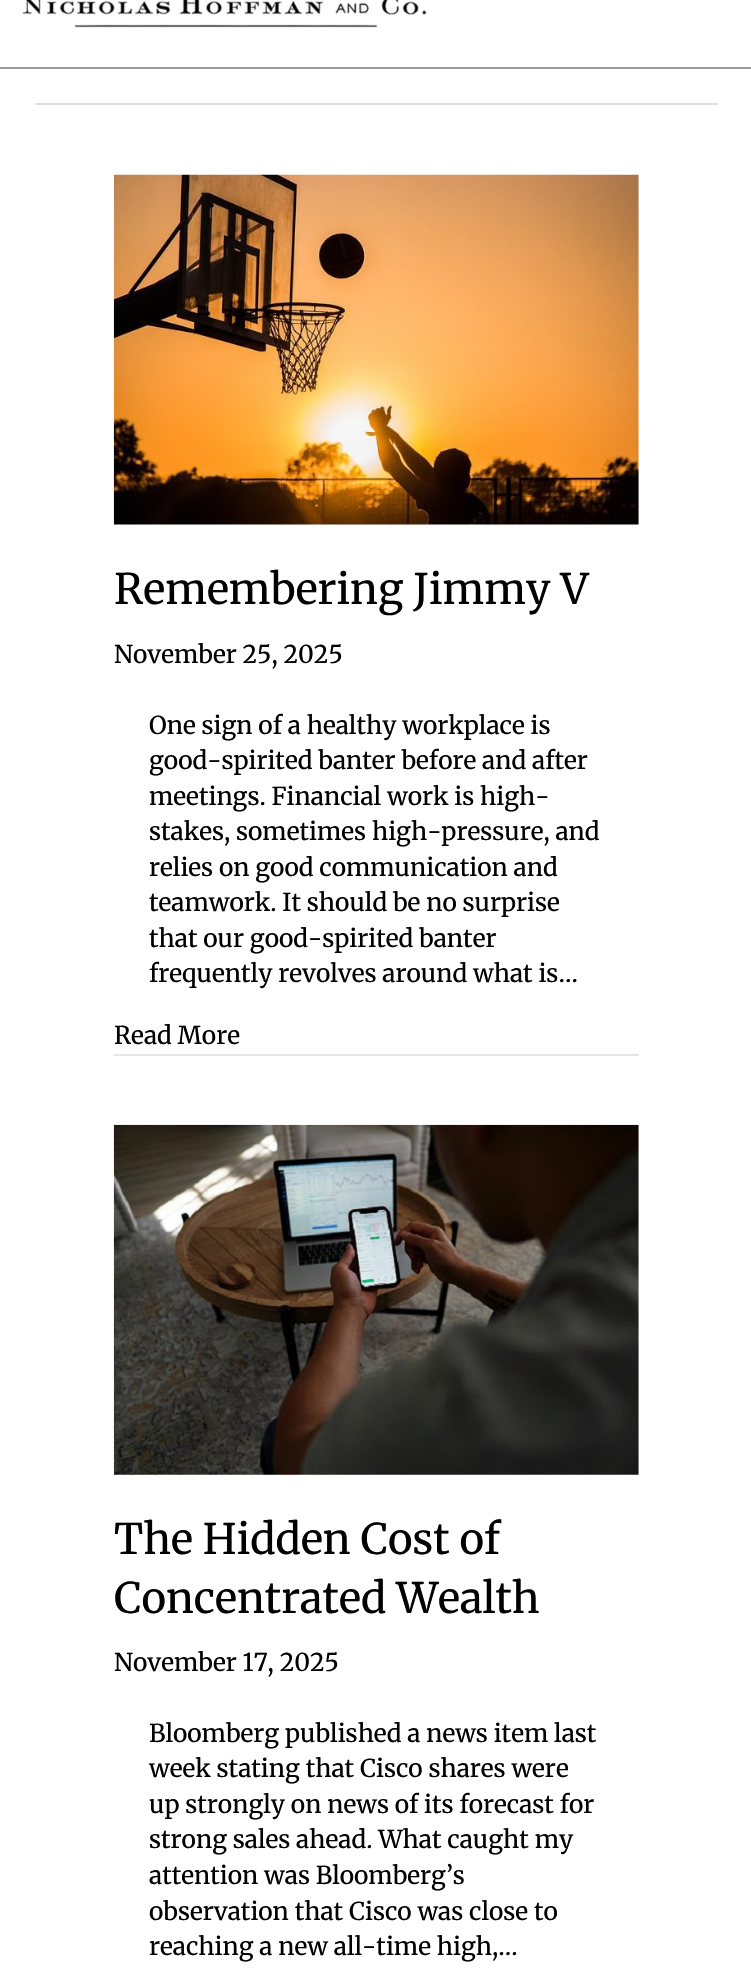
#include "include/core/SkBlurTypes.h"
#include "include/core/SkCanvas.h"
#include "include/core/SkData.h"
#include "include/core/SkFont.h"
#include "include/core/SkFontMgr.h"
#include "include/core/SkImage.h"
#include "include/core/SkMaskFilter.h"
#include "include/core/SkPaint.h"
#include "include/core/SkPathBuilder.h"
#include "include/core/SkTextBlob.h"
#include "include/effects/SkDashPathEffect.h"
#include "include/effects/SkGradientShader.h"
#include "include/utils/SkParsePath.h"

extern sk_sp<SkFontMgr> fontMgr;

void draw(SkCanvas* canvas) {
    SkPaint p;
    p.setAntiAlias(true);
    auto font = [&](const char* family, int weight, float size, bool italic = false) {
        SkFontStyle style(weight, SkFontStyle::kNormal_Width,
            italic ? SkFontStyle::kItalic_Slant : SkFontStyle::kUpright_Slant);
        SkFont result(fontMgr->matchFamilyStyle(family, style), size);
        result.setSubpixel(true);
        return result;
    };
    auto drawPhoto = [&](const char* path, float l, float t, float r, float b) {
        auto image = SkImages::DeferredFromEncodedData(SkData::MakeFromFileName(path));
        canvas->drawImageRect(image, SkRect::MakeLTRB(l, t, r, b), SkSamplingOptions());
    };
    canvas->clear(0xFFFFFFFF);
    p.setColor(0xFF9B9B9B);
    canvas->drawRect(SkRect::MakeLTRB(0, 67, 751, 69), p);
    drawPhoto("media/1.png", 22, 0, 427, 28);
    p.setColor(0xFFE0E0E0);
    canvas->drawRect(SkRect::MakeLTRB(35, 103, 718, 105), p);
    p.setColor(0xFFE6E6E6);
    canvas->drawRect(SkRect::MakeLTRB(114, 1054, 639, 1056), p);
    drawPhoto("media/2.png", 113, 174, 639, 525);
    auto font1 = font("Merriweather", 400, 42);
    p.setColor(0xFF000000);
    canvas->drawString("Remembering Jimmy V", 114, 604, font1, p);
    auto font2 = font("Merriweather", 400, 24.5f);
    {
        const struct { const char* s; float x, y; } items[] = {
            {"November 25, 2025", 114, 663},
            {"One sign of a healthy workplace is", 149, 734},
            {"good-spirited banter before and after", 149, 769},
            {"meetings. Financial work is high-", 149, 805},
            {"stakes, sometimes high-pressure, and", 149, 840},
            {"relies on good communication and", 149, 876},
            {"teamwork. It should be no surprise", 149, 911},
            {"that our good-spirited banter", 149, 947},
            {"frequently revolves around what is…", 149, 982},
            {"Read More", 114, 1044},
        };
        for (auto [s, x, y] : items) {
            canvas->drawString(s, x, y, font2, p);
        }
    }
    drawPhoto("media/3.png", 113, 1124, 639, 1475);
    canvas->drawString("The Hidden Cost of", 114, 1554, font1, p);
    canvas->drawString("Concentrated Wealth", 114, 1613, font1, p);
    {
        const struct { const char* s; float x, y; } items[] = {
            {"November 17, 2025", 114, 1671},
            {"Bloomberg published a news item last", 149, 1742},
            {"week stating that Cisco shares were", 149, 1777},
            {"up strongly on news of its forecast for", 149, 1813},
            {"strong sales ahead. What caught my", 149, 1848},
            {"attention was Bloomberg’s", 149, 1884},
            {"observation that Cisco was close to", 149, 1920},
            {"reaching a new all-time high,…", 149, 1955},
        };
        for (auto [s, x, y] : items) {
            canvas->drawString(s, x, y, font2, p);
        }
    }
}
